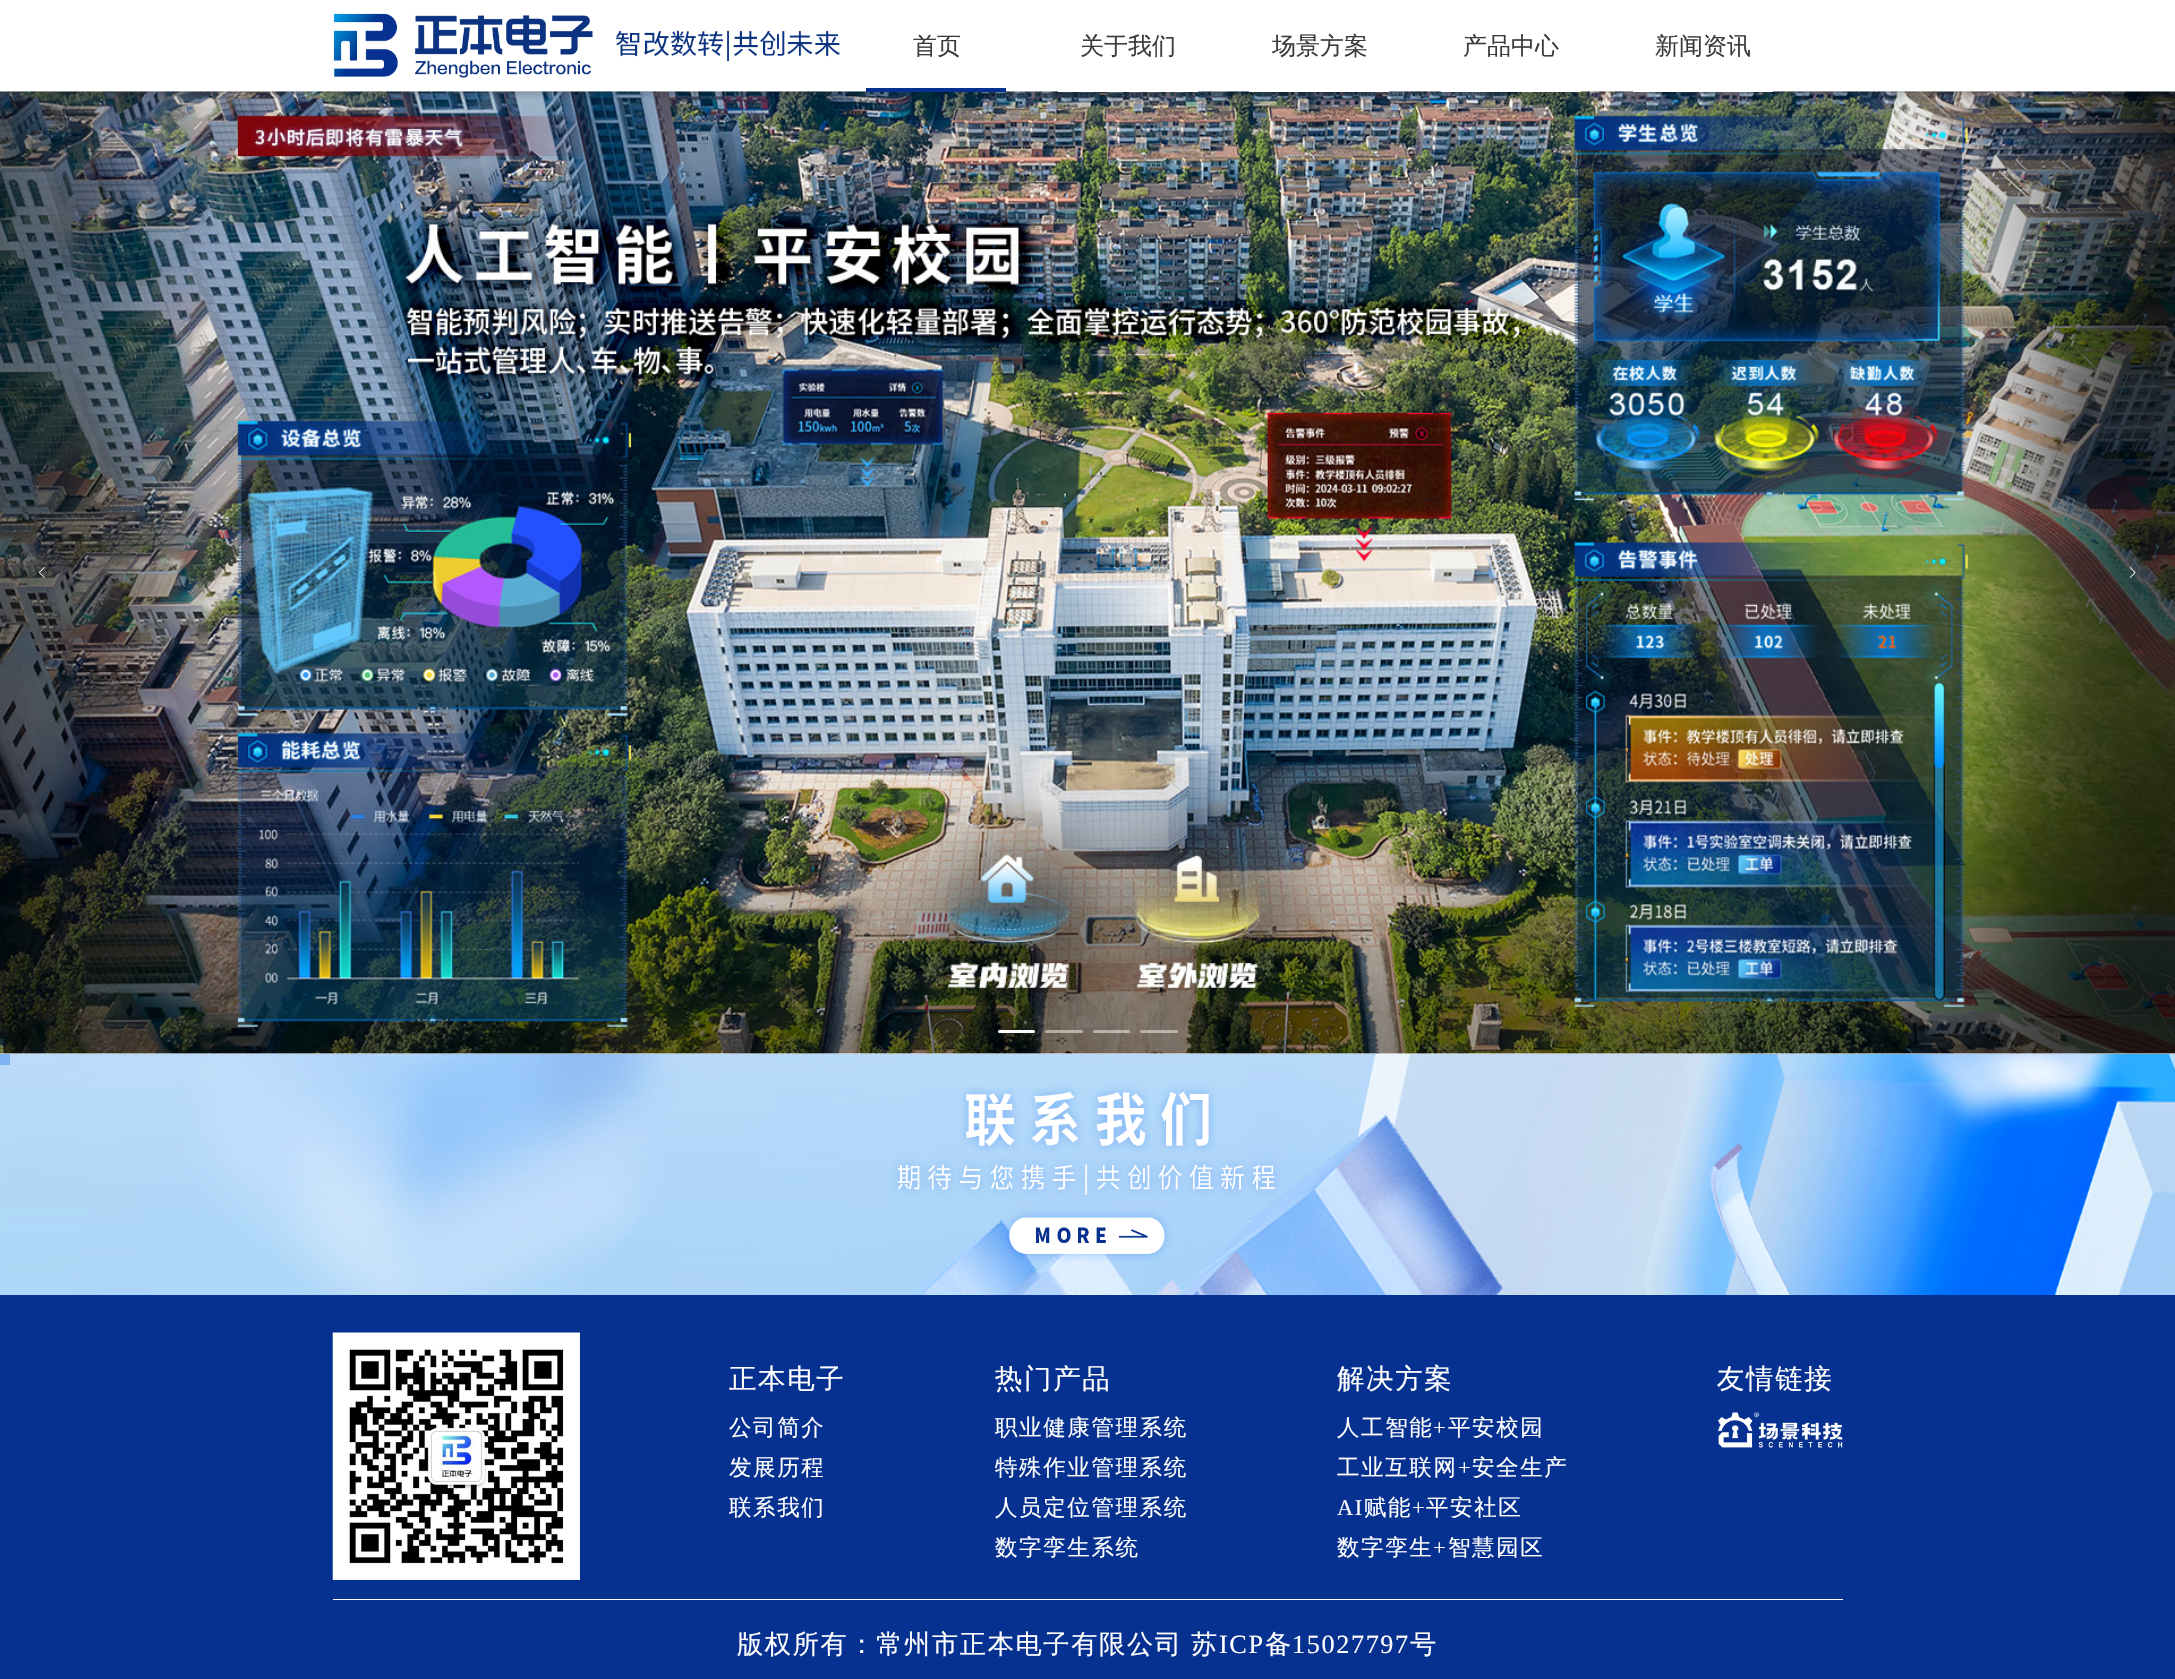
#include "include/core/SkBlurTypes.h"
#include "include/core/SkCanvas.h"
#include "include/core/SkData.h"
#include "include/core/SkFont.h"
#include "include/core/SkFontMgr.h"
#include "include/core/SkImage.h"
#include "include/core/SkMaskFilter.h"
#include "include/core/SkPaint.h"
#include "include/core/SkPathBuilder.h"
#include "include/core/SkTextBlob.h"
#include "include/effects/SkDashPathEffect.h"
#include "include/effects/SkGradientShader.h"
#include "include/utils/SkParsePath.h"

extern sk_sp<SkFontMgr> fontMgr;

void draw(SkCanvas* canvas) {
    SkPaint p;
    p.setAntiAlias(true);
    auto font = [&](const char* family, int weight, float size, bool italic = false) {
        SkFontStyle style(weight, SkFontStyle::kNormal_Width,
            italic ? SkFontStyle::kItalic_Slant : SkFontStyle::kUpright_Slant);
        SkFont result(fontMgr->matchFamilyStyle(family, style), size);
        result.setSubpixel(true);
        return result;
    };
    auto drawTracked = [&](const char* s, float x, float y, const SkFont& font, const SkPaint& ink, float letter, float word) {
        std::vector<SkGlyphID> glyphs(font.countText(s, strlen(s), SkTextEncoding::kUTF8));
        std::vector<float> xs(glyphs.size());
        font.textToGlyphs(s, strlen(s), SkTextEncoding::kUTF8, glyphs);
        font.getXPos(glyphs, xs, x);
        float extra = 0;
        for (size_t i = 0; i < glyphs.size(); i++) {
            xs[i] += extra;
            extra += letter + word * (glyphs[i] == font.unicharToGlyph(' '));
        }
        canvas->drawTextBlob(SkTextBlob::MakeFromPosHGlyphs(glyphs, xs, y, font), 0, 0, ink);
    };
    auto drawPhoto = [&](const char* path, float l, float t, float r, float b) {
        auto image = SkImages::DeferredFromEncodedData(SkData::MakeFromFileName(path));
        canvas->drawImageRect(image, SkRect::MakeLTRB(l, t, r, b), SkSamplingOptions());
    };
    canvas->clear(0xFFFFFFFF);
    drawPhoto("media/2.png", 0, 91, 2175, 1054);
    canvas->save();
    canvas->clipRect(SkRect::MakeLTRB(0, 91, 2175, 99));
    p.setColor(0x66000000);
    p.setMaskFilter(SkMaskFilter::MakeBlur(kNormal_SkBlurStyle, 5));
    canvas->drawRect(SkRect::MakeLTRB(0, 0, 2175, 91), p);
    p.setMaskFilter(nullptr);
    canvas->restore();
    drawPhoto("media/1.png", 333, 13, 840, 78);
    p.setColor(0xFF063190);
    canvas->drawRect(SkRect::MakeLTRB(866, 88, 1006, 92), p);
    auto font1 = font("WenQuanYi Zen Hei", 500, 24);
    p.setColor(0xFF3E3A39);
    canvas->drawString("首页", 913, 54, font1, p);
    p.setColor(0xFFFFFFFF);
    canvas->drawRect(SkRect::MakeLTRB(1058, 91, 1198, 92), p);
    p.setColor(0xFF3E3A39);
    canvas->drawString("关于我们", 1080, 54, font1, p);
    p.setColor(0xFFFFFFFF);
    canvas->drawRect(SkRect::MakeLTRB(1249, 91, 1389, 92), p);
    p.setColor(0xFF3E3A39);
    canvas->drawString("场景方案", 1272, 54, font1, p);
    p.setColor(0xFFFFFFFF);
    canvas->drawRect(SkRect::MakeLTRB(1441, 91, 1581, 92), p);
    p.setColor(0xFF3E3A39);
    canvas->drawString("产品中心", 1463, 54, font1, p);
    p.setColor(0xFFFFFFFF);
    canvas->drawRect(SkRect::MakeLTRB(1633, 91, 1773, 92), p);
    p.setColor(0xFF3E3A39);
    canvas->drawString("新闻资讯", 1655, 54, font1, p);
    p.setColor(0x1C1F2D3D);
    canvas->drawCircle(42.5f, 572.5f, 22.5f, p);
    drawPhoto("media/3.png", 39, 567, 45, 578);
    canvas->drawCircle(2132.5f, 572.5f, 22.5f, p);
    drawPhoto("media/4.png", 2129, 567, 2136, 578);
    p.setColor(0xFFFFFFFF);
    canvas->drawRoundRect(SkRect::MakeLTRB(998, 1030, 1035, 1033), 1.5f, 1.5f, p);
    p.setColor(0x7AFFFFFF);
    canvas->drawRoundRect(SkRect::MakeLTRB(1045, 1030, 1083, 1033), 1.5f, 1.5f, p);
    canvas->drawRoundRect(SkRect::MakeLTRB(1093, 1030, 1130, 1033), 1.5f, 1.5f, p);
    canvas->drawRoundRect(SkRect::MakeLTRB(1140, 1030, 1178, 1033), 1.5f, 1.5f, p);
    drawPhoto("media/5.png", 0, 1054, 2175, 1295);
    p.setColor(0xFF063190);
    canvas->drawRect(SkRect::MakeLTRB(0, 1295, 2175, 1679), p);
    p.setColor(0xFFFFFFFF);
    canvas->drawRect(SkRect::MakeLTRB(333, 1599, 1843, 1600), p);
    drawPhoto("media/6.png", 332, 1332, 580, 1580);
    auto font2 = font("WenQuanYi Zen Hei", 500, 27.5f);
    drawTracked("正本电子", 729, 1388, font2, p, 1.6f, 0);
    auto font3 = font("WenQuanYi Zen Hei", 500, 22.5f);
    {
        const struct { const char* s; float x, y; } items[] = {
            {"公司简介", 729, 1435},
            {"发展历程", 729, 1475},
            {"联系我们", 729, 1515},
        };
        for (auto [s, x, y] : items) {
            drawTracked(s, x, y, font3, p, 1.6f, 0);
        }
    }
    drawTracked("热门产品", 995, 1388, font2, p, 1.6f, 0);
    {
        const struct { const char* s; float x, y; } items[] = {
            {"职业健康管理系统", 995, 1435},
            {"特殊作业管理系统", 995, 1475},
            {"人员定位管理系统", 995, 1515},
            {"数字孪生系统", 995, 1555},
        };
        for (auto [s, x, y] : items) {
            drawTracked(s, x, y, font3, p, 1.6f, 0);
        }
    }
    drawTracked("解决方案", 1337, 1388, font2, p, 1.6f, 0);
    drawTracked("人工智能", 1337, 1435, font3, p, 1.6f, 0);
    auto font4 = font("Liberation Serif", 400, 22.5f);
    drawTracked("+", 1433, 1435, font4, p, 1.6f, 0);
    drawTracked("平安校园", 1448, 1435, font3, p, 1.6f, 0);
    drawTracked("工业互联网", 1337, 1475, font3, p, 1.6f, 0);
    drawTracked("+", 1458, 1475, font4, p, 1.6f, 0);
    drawTracked("安全生产", 1472, 1475, font3, p, 1.6f, 0);
    drawTracked("AI", 1337, 1515, font4, p, 1.6f, 0);
    drawTracked("赋能", 1364, 1515, font3, p, 1.6f, 0);
    drawTracked("+", 1412, 1515, font4, p, 1.6f, 0);
    drawTracked("平安社区", 1426, 1515, font3, p, 1.6f, 0);
    drawTracked("数字孪生", 1337, 1555, font3, p, 1.6f, 0);
    drawTracked("+", 1433, 1555, font4, p, 1.6f, 0);
    drawTracked("智慧园区", 1448, 1555, font3, p, 1.6f, 0);
    drawTracked("友情链接", 1717, 1388, font2, p, 1.6f, 0);
    drawPhoto("media/7.png", 1718, 1412, 1843, 1448);
    auto font5 = font("WenQuanYi Zen Hei", 500, 26.25f);
    drawTracked("版权所有：常州市正本电子有限公司", 737, 1653, font5, p, 1.6f, 0);
    drawTracked("苏", 1191, 1653, font5, p, 1.6f, 0);
    auto font6 = font("Liberation Serif", 400, 26.25f);
    drawTracked("ICP", 1219, 1653, font6, p, 1.6f, 0);
    drawTracked("备", 1265, 1653, font5, p, 1.6f, 0);
    drawTracked("15027797", 1292, 1653, font6, p, 1.6f, 0);
    drawTracked("号", 1410, 1653, font5, p, 1.6f, 0);
}
